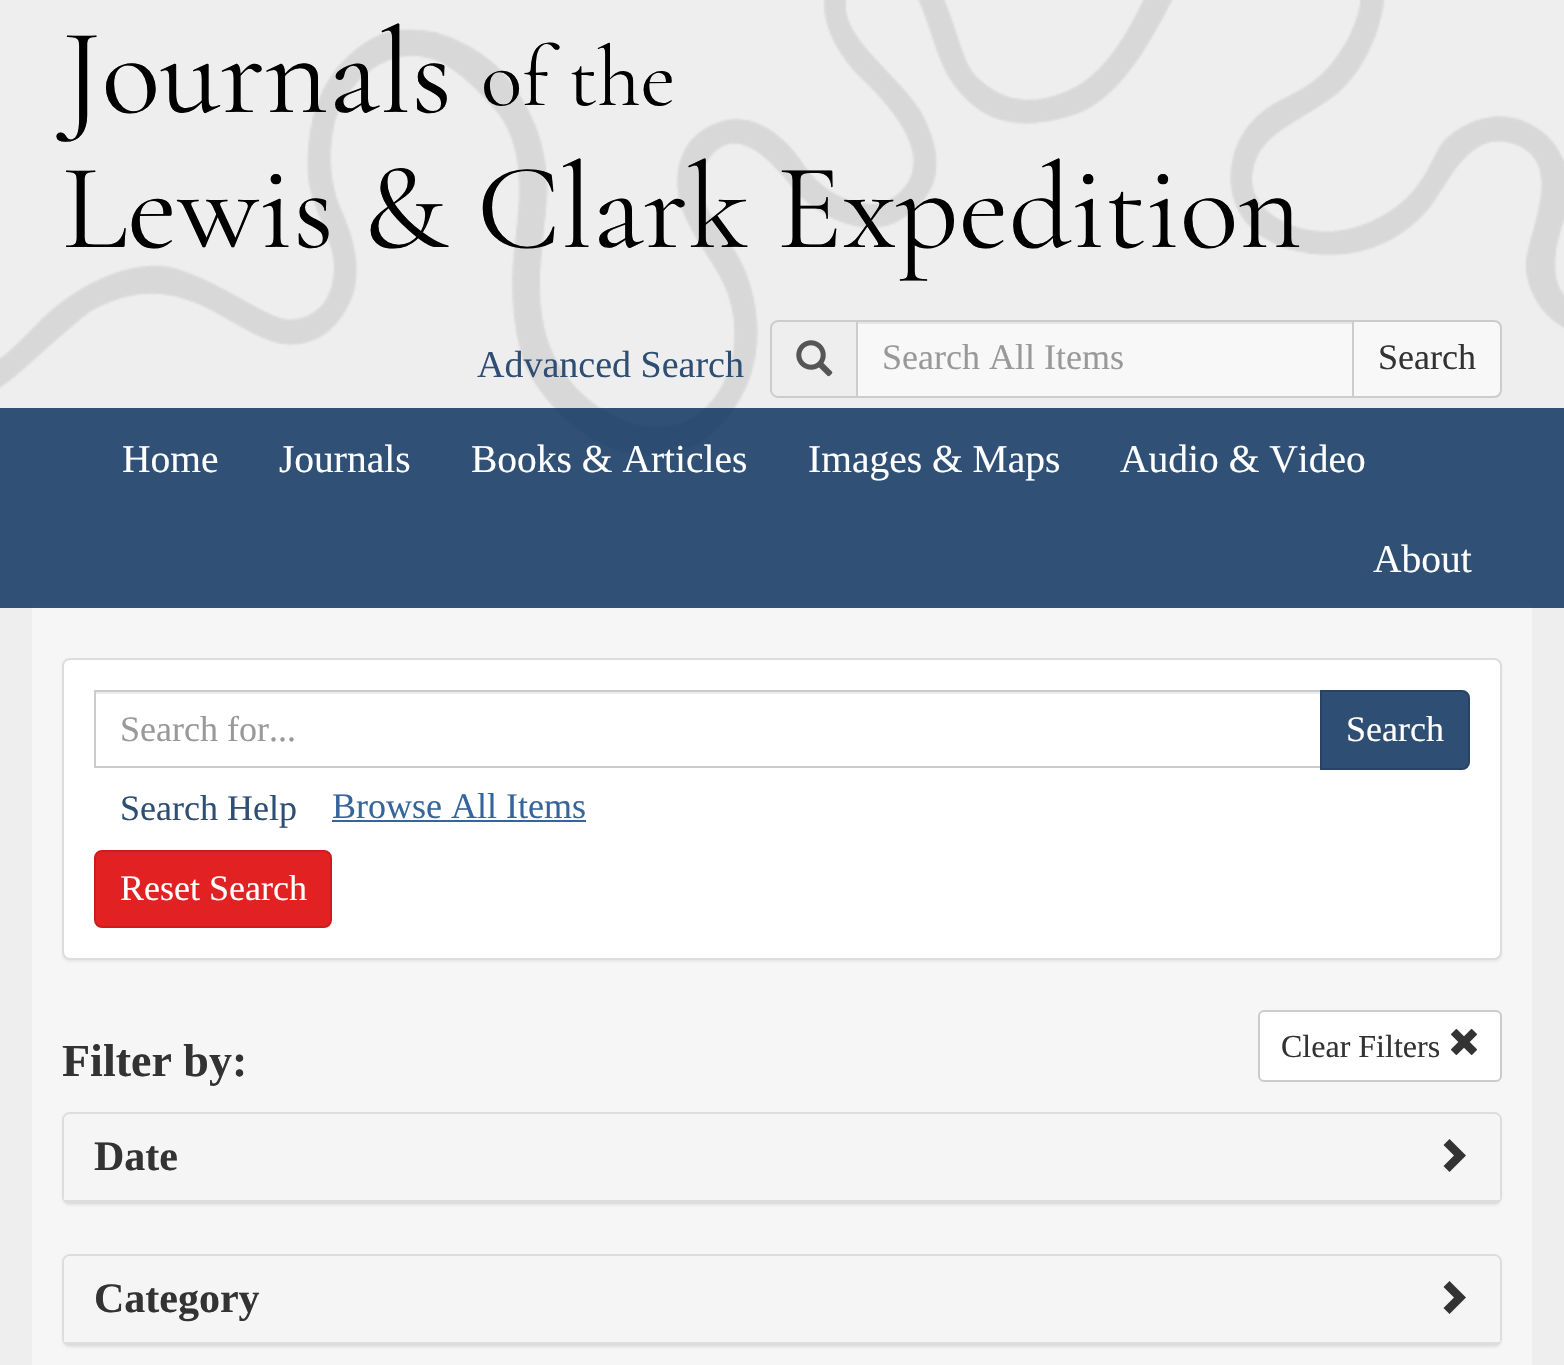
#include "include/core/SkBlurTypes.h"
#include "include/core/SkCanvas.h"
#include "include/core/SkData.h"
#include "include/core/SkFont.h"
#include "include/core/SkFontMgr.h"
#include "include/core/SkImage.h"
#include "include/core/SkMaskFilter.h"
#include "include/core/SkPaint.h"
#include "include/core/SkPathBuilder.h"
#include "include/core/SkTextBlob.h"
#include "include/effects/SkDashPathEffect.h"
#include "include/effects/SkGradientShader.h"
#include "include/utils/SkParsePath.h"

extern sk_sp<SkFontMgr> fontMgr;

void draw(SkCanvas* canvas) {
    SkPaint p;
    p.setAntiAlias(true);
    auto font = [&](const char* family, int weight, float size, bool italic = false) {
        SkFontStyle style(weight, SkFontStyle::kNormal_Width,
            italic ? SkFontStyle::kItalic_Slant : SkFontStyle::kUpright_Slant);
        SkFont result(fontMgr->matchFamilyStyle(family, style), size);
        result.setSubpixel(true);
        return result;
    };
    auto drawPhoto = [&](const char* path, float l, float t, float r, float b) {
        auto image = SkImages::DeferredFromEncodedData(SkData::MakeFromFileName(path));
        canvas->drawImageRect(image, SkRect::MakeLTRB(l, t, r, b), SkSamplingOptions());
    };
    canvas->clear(0xFFEEEEEE);
    drawPhoto("media/1.png", 0, 0, 1564, 457);
    auto font1 = font("Cormorant Garamond", 300, 122.4f);
    p.setColor(0xFF000000);
    canvas->drawString("Journals", 62, 112, font1, p);
    auto font2 = font("Cormorant Garamond", 300, 86);
    canvas->drawString("of the", 481, 105, font2, p);
    canvas->drawString("Lewis & Clark Expedition", 62, 247, font1, p);
    auto font3 = font("Liberation Serif", 400, 38);
    p.setColor(0xFF2E4E74);
    canvas->drawString("Advanced Search", 477, 377, font3, p);
    p.setColor(0xFFCCCCCC);
    canvas->drawPath(SkPathBuilder(SkPathFillType::kEvenOdd).moveTo(778, 320).lineTo(856, 320).lineTo(856, 398).lineTo(778, 398).cubicTo(774, 398, 770, 394, 770, 390).lineTo(770, 328).cubicTo(770, 324, 774, 320, 778, 320).close().moveTo(778, 322).lineTo(856, 322).lineTo(856, 396).lineTo(778, 396).cubicTo(775, 396, 772, 393, 772, 390).lineTo(772, 328).cubicTo(772, 325, 775, 322, 778, 322).close().detach(), p);
    drawPhoto("media/2.png", 796, 340, 833, 377);
    p.setColor(0xFFF8F8F8);
    canvas->drawRect(SkRect::MakeLTRB(858, 324, 1352, 396), p);
    p.setColor(0xFFE5E5E5);
    canvas->drawRect(SkRect::MakeLTRB(858, 322, 1352, 324), p);
    p.setStyle(SkPaint::kStroke_Style);
    p.setStrokeWidth(2);
    p.setColor(0xFFCCCCCC);
    canvas->drawRect(SkRect::MakeLTRB(857, 321, 1353, 397), p);
    auto font4 = font("Liberation Serif", 400, 36);
    p.setStyle(SkPaint::kFill_Style);
    p.setColor(0xFF999999);
    canvas->drawString("Search All Items", 882, 369, font4, p);
    p.setColor(0x99FFFFFF);
    canvas->drawPath(SkPathBuilder().moveTo(1353, 321).lineTo(1494, 321).cubicTo(1498, 321, 1501, 324, 1501, 328).lineTo(1501, 390).cubicTo(1501, 394, 1498, 397, 1494, 397).lineTo(1353, 397).close().detach(), p);
    p.setStyle(SkPaint::kStroke_Style);
    p.setColor(0xFFCCCCCC);
    canvas->drawPath(SkPathBuilder().moveTo(1353, 321).lineTo(1494, 321).cubicTo(1498, 321, 1501, 324, 1501, 328).lineTo(1501, 390).cubicTo(1501, 394, 1498, 397, 1494, 397).lineTo(1353, 397).close().detach(), p);
    p.setStyle(SkPaint::kFill_Style);
    p.setColor(0xFF333333);
    canvas->drawString("Search", 1378, 369, font4, p);
    p.setColor(0xFFF6F6F6);
    canvas->drawRect(SkRect::MakeLTRB(32, 604, 1532, 1365), p);
    p.setColor(0xCC002956);
    canvas->drawRect(SkRect::MakeLTRB(0, 408, 1564, 608), p);
    auto font5 = font("Liberation Serif", 400, 39.5f);
    p.setColor(0xFFFFFFFF);
    {
        const struct { const char* s; float x, y; } items[] = {
            {"Home", 122, 472},
            {"Journals", 279, 472},
            {"Books & Articles", 471, 472},
            {"Images & Maps", 808, 472},
            {"Audio & Video", 1120, 472},
            {"About", 1373, 572},
        };
        for (auto [s, x, y] : items) {
            canvas->drawString(s, x, y, font5, p);
        }
    }
    p.setColor(0x0D000000);
    p.setMaskFilter(SkMaskFilter::MakeBlur(kNormal_SkBlurStyle, 1));
    canvas->drawRoundRect(SkRect::MakeLTRB(62, 660, 1502, 962), 8, 8, p);
    p.setMaskFilter(nullptr);
    p.setColor(0xFFFFFFFF);
    canvas->drawRoundRect(SkRect::MakeLTRB(63, 659, 1501, 959), 7, 7, p);
    p.setStyle(SkPaint::kStroke_Style);
    p.setColor(0xFFDDDDDD);
    canvas->drawRoundRect(SkRect::MakeLTRB(63, 659, 1501, 959), 7, 7, p);
    p.setStyle(SkPaint::kFill_Style);
    p.setColor(0xFFECECEC);
    canvas->drawRect(SkRect::MakeLTRB(96, 692, 1320, 694), p);
    p.setStyle(SkPaint::kStroke_Style);
    p.setColor(0xFFCCCCCC);
    canvas->drawRect(SkRect::MakeLTRB(95, 691, 1321, 767), p);
    p.setStyle(SkPaint::kFill_Style);
    p.setColor(0xFF999999);
    canvas->drawString("Search for...", 120, 741, font4, p);
    p.setColor(0xFF2E4E74);
    canvas->drawPath(SkPathBuilder().moveTo(1321, 691).lineTo(1462, 691).cubicTo(1466, 691, 1469, 694, 1469, 698).lineTo(1469, 762).cubicTo(1469, 766, 1466, 769, 1462, 769).lineTo(1321, 769).close().detach(), p);
    p.setStyle(SkPaint::kStroke_Style);
    p.setColor(0xFF274262);
    canvas->drawPath(SkPathBuilder().moveTo(1321, 691).lineTo(1462, 691).cubicTo(1466, 691, 1469, 694, 1469, 698).lineTo(1469, 762).cubicTo(1469, 766, 1466, 769, 1462, 769).lineTo(1321, 769).close().detach(), p);
    p.setStyle(SkPaint::kFill_Style);
    p.setColor(0xFFFFFFFF);
    canvas->drawString("Search", 1346, 741, font4, p);
    p.setColor(0xFF2E4E74);
    canvas->drawString("Search Help", 120, 820, font4, p);
    p.setColor(0xFF36659C);
    canvas->drawString("Browse All Items", 332, 818, font4, p);
    canvas->drawRect(SkRect::MakeLTRB(332, 820, 586, 822), p);
    p.setColor(0xFFE12122);
    canvas->drawRoundRect(SkRect::MakeLTRB(95, 851, 331, 927), 7, 7, p);
    p.setStyle(SkPaint::kStroke_Style);
    p.setColor(0xFFCD1C1D);
    canvas->drawRoundRect(SkRect::MakeLTRB(95, 851, 331, 927), 7, 7, p);
    p.setStyle(SkPaint::kFill_Style);
    p.setColor(0xFFFFFFFF);
    canvas->drawString("Reset Search", 120, 900, font4, p);
    auto font6 = font("Liberation Serif", 700, 46);
    p.setColor(0xFF333333);
    canvas->drawString("Filter by:", 62, 1076, font6, p);
    p.setColor(0xFFFFFFFF);
    canvas->drawRoundRect(SkRect::MakeLTRB(1259, 1011, 1501, 1081), 5, 5, p);
    p.setStyle(SkPaint::kStroke_Style);
    p.setColor(0xFFCCCCCC);
    canvas->drawRoundRect(SkRect::MakeLTRB(1259, 1011, 1501, 1081), 5, 5, p);
    auto font7 = font("Liberation Serif", 400, 32);
    p.setStyle(SkPaint::kFill_Style);
    p.setColor(0xFF333333);
    canvas->drawString("Clear Filters", 1281, 1057, font7, p);
    drawPhoto("media/3.png", 1451, 1029, 1477, 1055);
    p.setColor(0x0D000000);
    p.setMaskFilter(SkMaskFilter::MakeBlur(kNormal_SkBlurStyle, 1));
    canvas->drawRoundRect(SkRect::MakeLTRB(62, 1114, 1502, 1206), 8, 8, p);
    p.setMaskFilter(nullptr);
    p.setStyle(SkPaint::kStroke_Style);
    p.setColor(0xFFDDDDDD);
    canvas->drawRoundRect(SkRect::MakeLTRB(63, 1113, 1501, 1203), 7, 7, p);
    p.setStyle(SkPaint::kFill_Style);
    p.setColor(0xFFF5F5F5);
    canvas->drawPath(SkPathBuilder().moveTo(70, 1114).lineTo(1494, 1114).cubicTo(1497.5f, 1114, 1500, 1116.5f, 1500, 1120).lineTo(1500, 1202).lineTo(64, 1202).lineTo(64, 1120).cubicTo(64, 1116.5f, 66.5f, 1114, 70, 1114).close().detach(), p);
    p.setColor(0xFFDDDDDD);
    canvas->drawRect(SkRect::MakeLTRB(64, 1200, 1500, 1202), p);
    auto font8 = font("Liberation Serif", 700, 42);
    p.setColor(0xFF333333);
    canvas->drawString("Date", 94, 1170, font8, p);
    canvas->drawPath(SkPathBuilder().moveTo(1466, 1155.5f).lineTo(1449.5f, 1172).lineTo(1443.5f, 1166).lineTo(1454, 1155.5f).lineTo(1443.5f, 1145).lineTo(1449.5f, 1139).close().detach(), p);
    p.setColor(0x0D000000);
    p.setMaskFilter(SkMaskFilter::MakeBlur(kNormal_SkBlurStyle, 1));
    canvas->drawRoundRect(SkRect::MakeLTRB(62, 1256, 1502, 1348), 8, 8, p);
    p.setMaskFilter(nullptr);
    p.setStyle(SkPaint::kStroke_Style);
    p.setColor(0xFFDDDDDD);
    canvas->drawRoundRect(SkRect::MakeLTRB(63, 1255, 1501, 1345), 7, 7, p);
    p.setStyle(SkPaint::kFill_Style);
    p.setColor(0xFFF5F5F5);
    canvas->drawPath(SkPathBuilder().moveTo(70, 1256).lineTo(1494, 1256).cubicTo(1497.5f, 1256, 1500, 1258.5f, 1500, 1262).lineTo(1500, 1344).lineTo(64, 1344).lineTo(64, 1262).cubicTo(64, 1258.5f, 66.5f, 1256, 70, 1256).close().detach(), p);
    p.setColor(0xFFDDDDDD);
    canvas->drawRect(SkRect::MakeLTRB(64, 1342, 1500, 1344), p);
    p.setColor(0xFF333333);
    canvas->drawString("Category", 94, 1312, font8, p);
    canvas->drawPath(SkPathBuilder().moveTo(1466, 1297.5f).lineTo(1449.5f, 1314).lineTo(1443.5f, 1308).lineTo(1454, 1297.5f).lineTo(1443.5f, 1287).lineTo(1449.5f, 1281).close().detach(), p);
}
